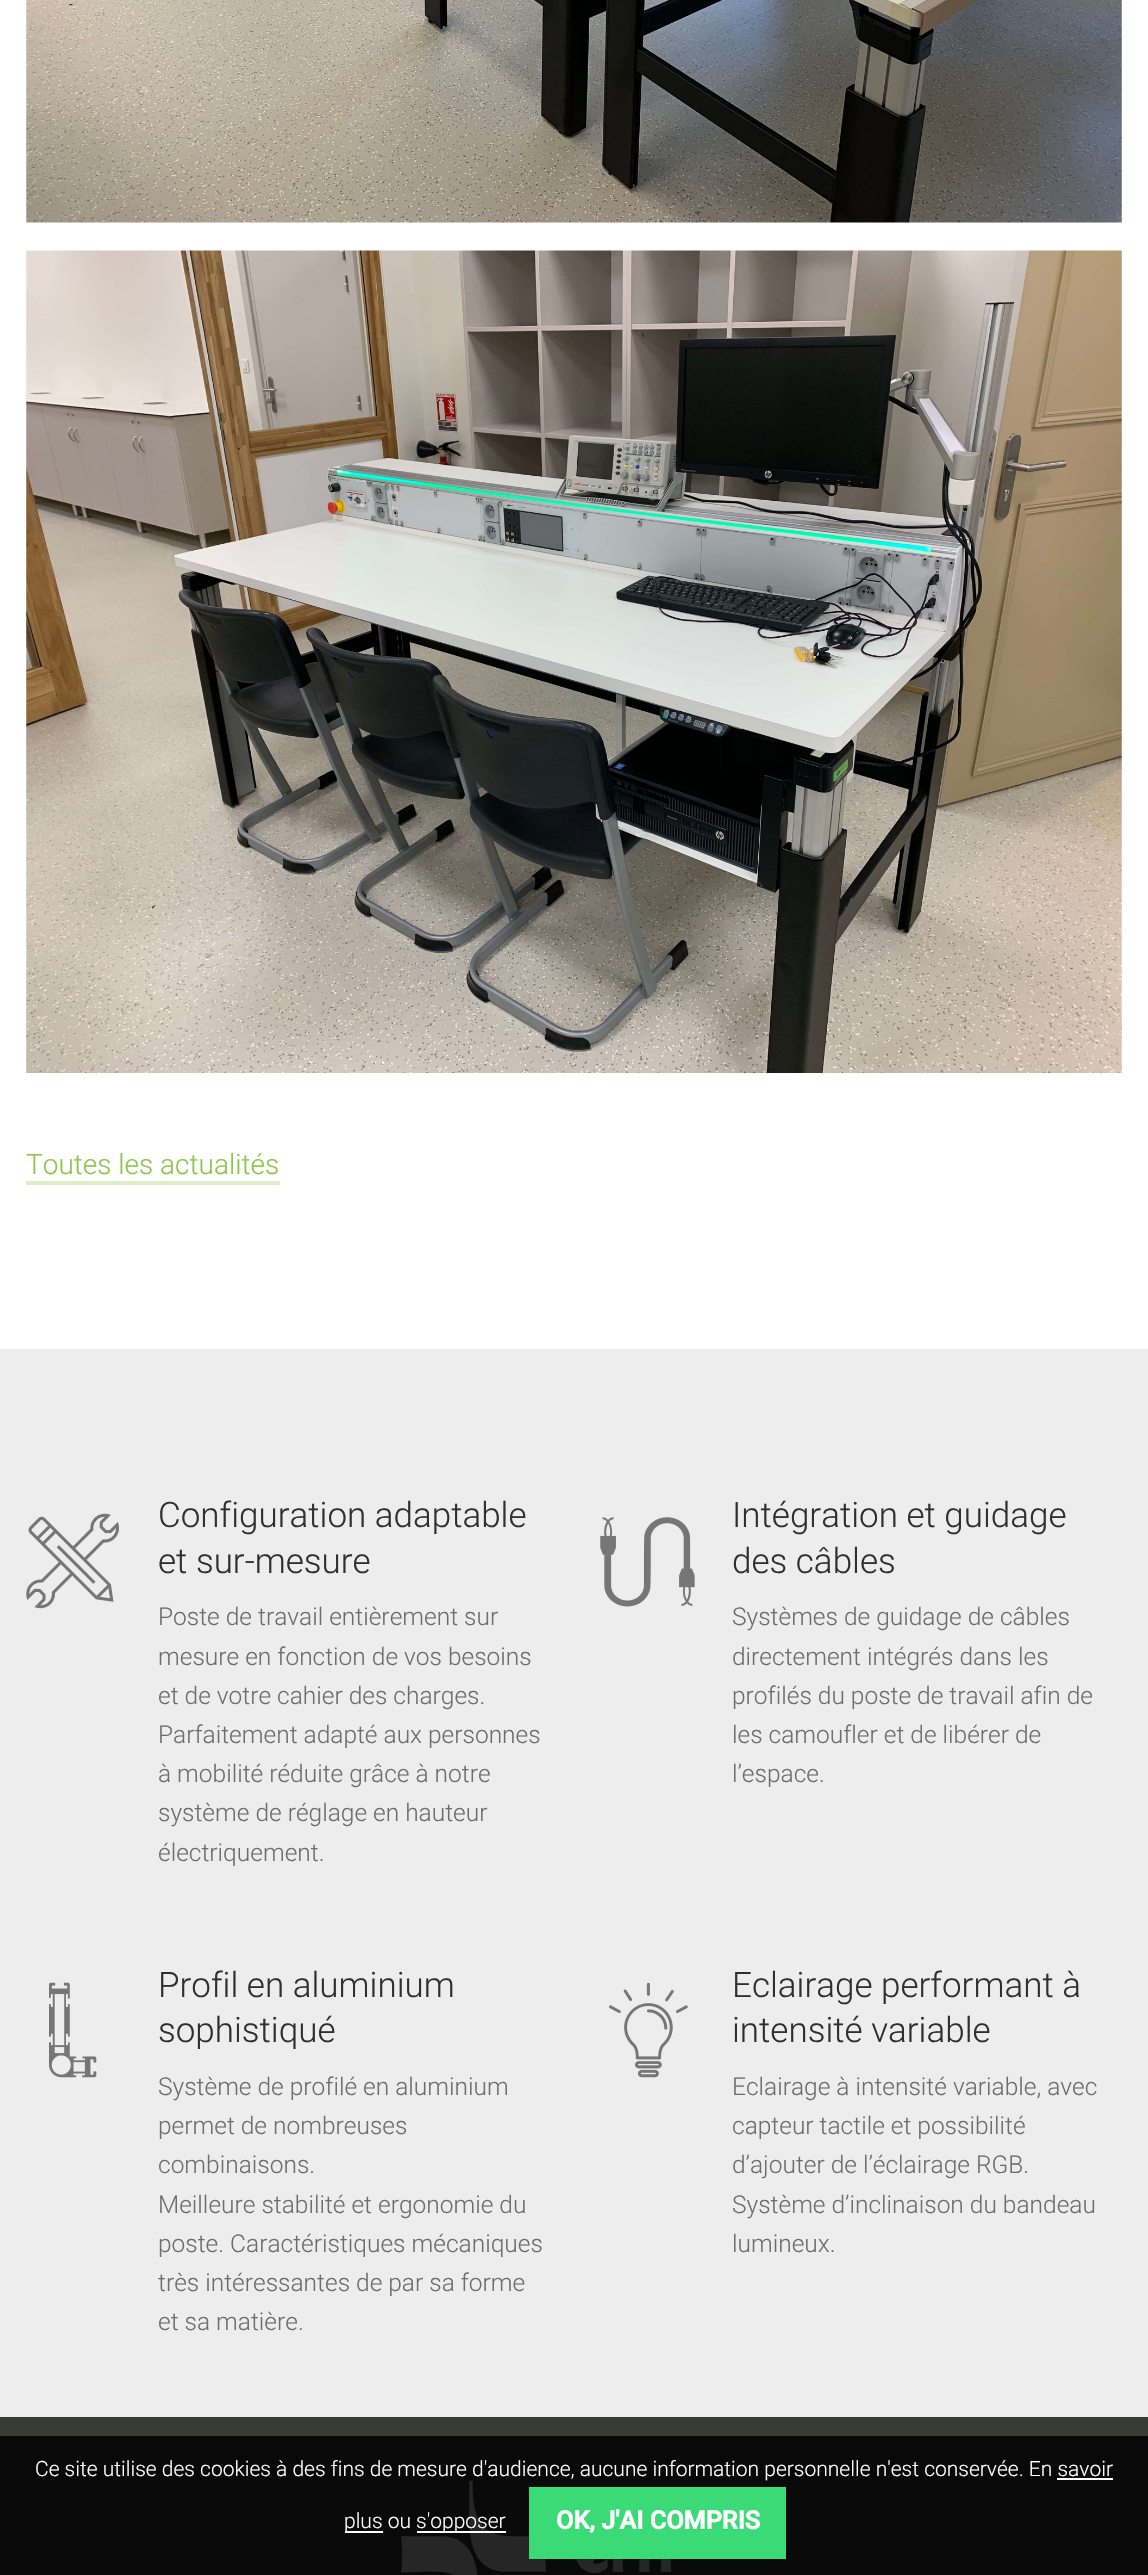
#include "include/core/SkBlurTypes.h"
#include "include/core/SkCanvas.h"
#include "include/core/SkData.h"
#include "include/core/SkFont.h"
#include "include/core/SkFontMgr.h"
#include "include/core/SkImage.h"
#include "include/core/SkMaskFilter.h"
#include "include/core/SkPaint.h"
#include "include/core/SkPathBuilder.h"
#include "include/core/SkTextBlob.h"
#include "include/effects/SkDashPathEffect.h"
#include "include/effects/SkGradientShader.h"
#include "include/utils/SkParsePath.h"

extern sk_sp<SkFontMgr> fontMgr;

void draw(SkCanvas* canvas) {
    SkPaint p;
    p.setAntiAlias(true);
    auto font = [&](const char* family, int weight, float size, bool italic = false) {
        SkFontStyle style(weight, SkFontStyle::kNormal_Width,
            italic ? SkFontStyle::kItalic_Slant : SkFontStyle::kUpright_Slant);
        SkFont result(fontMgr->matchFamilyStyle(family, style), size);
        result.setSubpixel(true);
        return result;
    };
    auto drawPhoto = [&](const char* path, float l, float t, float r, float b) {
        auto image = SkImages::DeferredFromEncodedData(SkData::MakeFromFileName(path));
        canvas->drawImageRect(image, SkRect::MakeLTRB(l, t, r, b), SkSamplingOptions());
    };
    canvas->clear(0xFFFFFFFF);
    drawPhoto("media/1.png", 26, 0, 1122, 223);
    drawPhoto("media/2.png", 26, 250, 1122, 1073);
    auto font1 = font("Roboto", 300, 28);
    p.setColor(0xFF8EC549);
    canvas->drawString("Toutes les actualités", 26, 1174, font1, p);
    p.setColor(0xFFDDEEC8);
    canvas->drawRect(SkRect::MakeLTRB(26, 1181, 280, 1185), p);
    p.setColor(0xFFEDEDED);
    canvas->drawRect(SkRect::MakeLTRB(0, 1349, 1148, 2417), p);
    drawPhoto("media/3.png", 26, 1513, 119, 1609);
    auto font2 = font("Roboto", 300, 35);
    p.setColor(0xFF2F2F2F);
    canvas->drawString("Configuration adaptable", 158, 1527, font2, p);
    canvas->drawString("et sur-mesure", 158, 1573, font2, p);
    auto font3 = font("Roboto", 300, 24.5f);
    p.setColor(0xFF6D6D6D);
    {
        const struct { const char* s; float x, y; } items[] = {
            {"Poste de travail entièrement sur", 158, 1625},
            {"mesure en fonction de vos besoins", 158, 1665},
            {"et de votre cahier des charges.", 158, 1704},
            {"Parfaitement adapté aux personnes", 158, 1743},
            {"à mobilité réduite grâce à notre", 158, 1782},
            {"système de réglage en hauteur", 158, 1821},
            {"électriquement.", 158, 1861},
        };
        for (auto [s, x, y] : items) {
            canvas->drawString(s, x, y, font3, p);
        }
    }
    drawPhoto("media/4.png", 600, 1517, 695, 1607);
    p.setColor(0xFF2F2F2F);
    canvas->drawString("Intégration et guidage", 732, 1527, font2, p);
    canvas->drawString("des câbles", 732, 1573, font2, p);
    p.setColor(0xFF6D6D6D);
    {
        const struct { const char* s; float x, y; } items[] = {
            {"Systèmes de guidage de câbles", 732, 1625},
            {"directement intégrés dans les", 732, 1665},
            {"profilés du poste de travail afin de", 732, 1704},
            {"les camoufler et de libérer de", 732, 1743},
            {"l’espace.", 732, 1782},
        };
        for (auto [s, x, y] : items) {
            canvas->drawString(s, x, y, font3, p);
        }
    }
    drawPhoto("media/5.png", 49, 1982, 97, 2078);
    p.setColor(0xFF2F2F2F);
    canvas->drawString("Profil en aluminium", 158, 1997, font2, p);
    canvas->drawString("sophistiqué", 158, 2042, font2, p);
    p.setColor(0xFF6D6D6D);
    {
        const struct { const char* s; float x, y; } items[] = {
            {"Système de profilé en aluminium", 158, 2095},
            {"permet de nombreuses", 158, 2134},
            {"combinaisons.", 158, 2173},
            {"Meilleure stabilité et ergonomie du", 158, 2213},
            {"poste. Caractéristiques mécaniques", 158, 2252},
            {"très intéressantes de par sa forme", 158, 2291},
            {"et sa matière.", 158, 2330},
        };
        for (auto [s, x, y] : items) {
            canvas->drawString(s, x, y, font3, p);
        }
    }
    drawPhoto("media/6.png", 609, 1982, 688, 2078);
    p.setColor(0xFF2F2F2F);
    canvas->drawString("Eclairage performant à", 732, 1997, font2, p);
    canvas->drawString("intensité variable", 732, 2042, font2, p);
    p.setColor(0xFF6D6D6D);
    {
        const struct { const char* s; float x, y; } items[] = {
            {"Eclairage à intensité variable, avec", 732, 2095},
            {"capteur tactile et possibilité", 732, 2134},
            {"d’ajouter de l’éclairage RGB.", 732, 2173},
            {"Système d’inclinaison du bandeau", 732, 2213},
            {"lumineux.", 732, 2252},
        };
        for (auto [s, x, y] : items) {
            canvas->drawString(s, x, y, font3, p);
        }
    }
    p.setColor(0xFF383A34);
    canvas->drawRect(SkRect::MakeLTRB(0, 2417, 1148, 2436), p);
    p.setColor(0xFF080908);
    canvas->drawRect(SkRect::MakeLTRB(0, 2436, 1148, 2575), p);
    drawPhoto("media/7.png", 401, 2480, 672, 2575);
    auto font4 = font("Roboto", 300, 21);
    p.setColor(0xFFFFFFFF);
    canvas->drawString("Ce site utilise des cookies à des fins de mesure d'audience, aucune information personnelle n'est conservée. En savoir", 35, 2476, font4, p);
    canvas->drawRect(SkRect::MakeLTRB(345, 2531, 383, 2533), p);
    canvas->drawString("plus ou", 344, 2528, font4, p);
    canvas->drawRect(SkRect::MakeLTRB(1057, 2478, 1113, 2480), p);
    canvas->drawRect(SkRect::MakeLTRB(417, 2531, 506, 2533), p);
    canvas->drawString("s'opposer", 416, 2528, font4, p);
    p.setColor(0xFF3ADB76);
    canvas->drawRect(SkRect::MakeLTRB(529, 2487, 786, 2559), p);
    auto font5 = font("Roboto", 700, 25.25f);
    p.setColor(0xFFFFFFFF);
    canvas->drawString("OK, J'AI COMPRIS", 556, 2529, font5, p);
}
